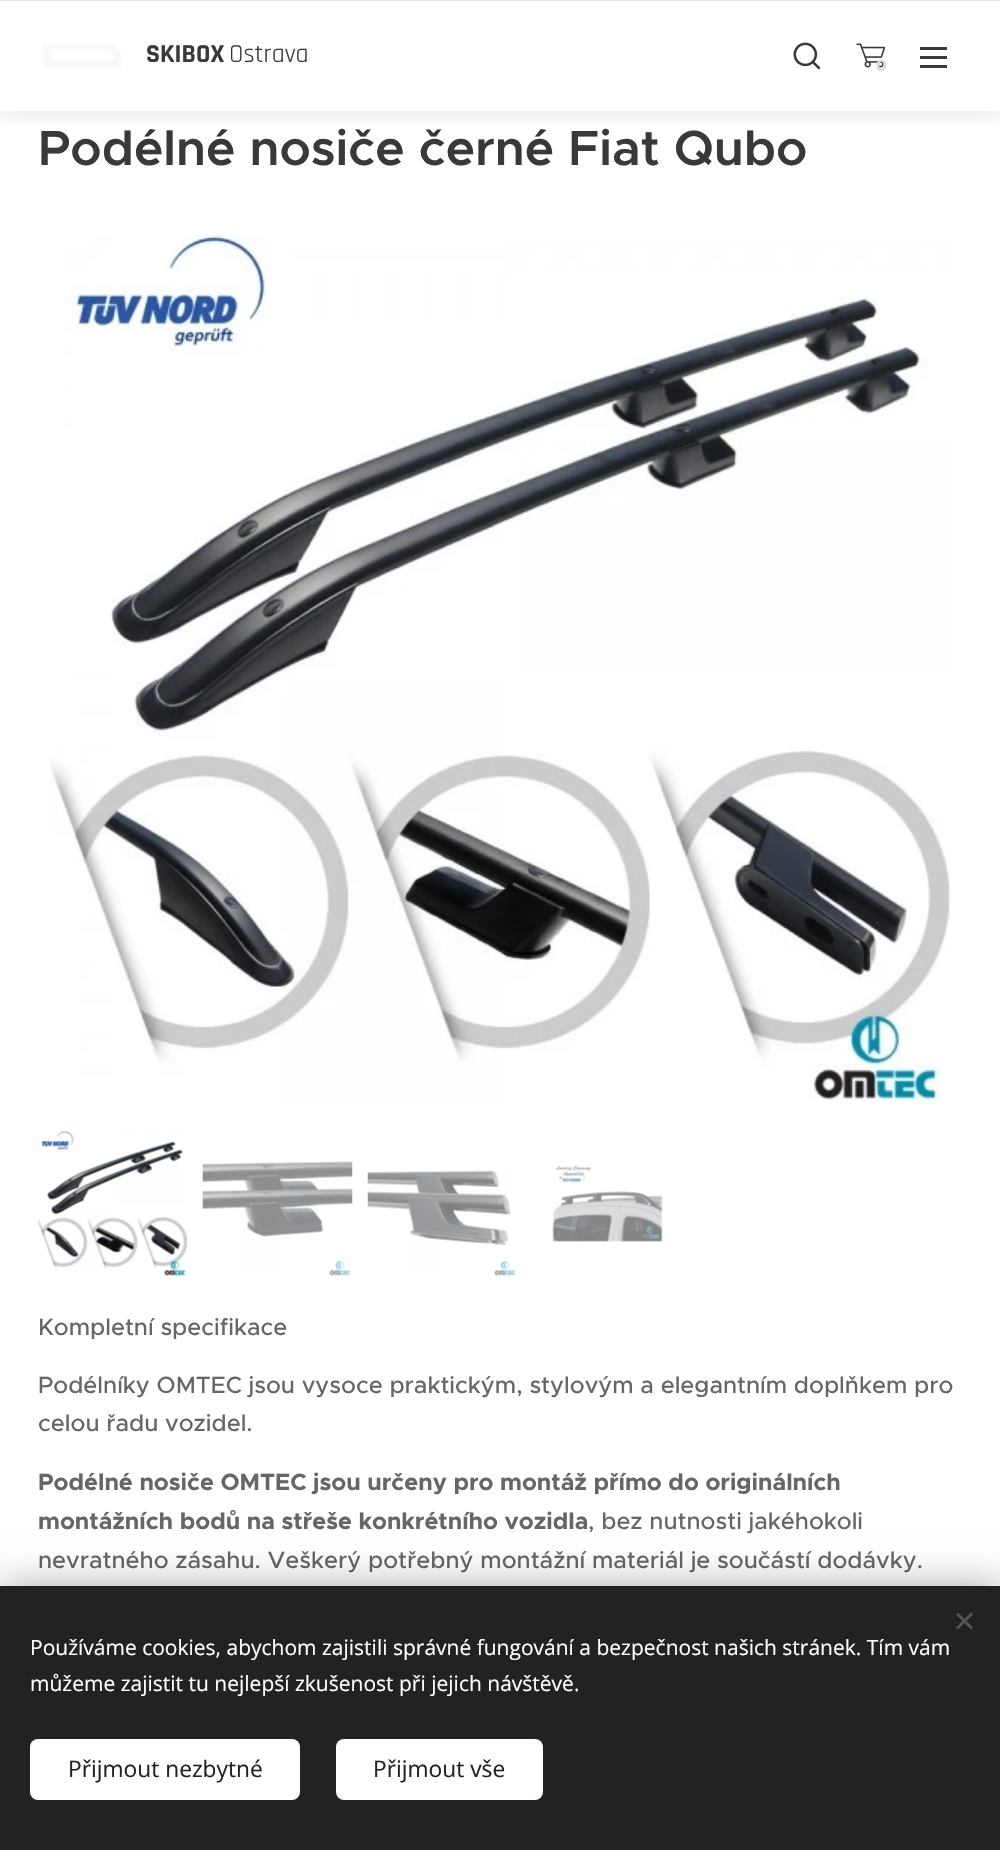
#include "include/core/SkBlurTypes.h"
#include "include/core/SkCanvas.h"
#include "include/core/SkData.h"
#include "include/core/SkFont.h"
#include "include/core/SkFontMgr.h"
#include "include/core/SkImage.h"
#include "include/core/SkMaskFilter.h"
#include "include/core/SkPaint.h"
#include "include/core/SkPathBuilder.h"
#include "include/core/SkTextBlob.h"
#include "include/effects/SkDashPathEffect.h"
#include "include/effects/SkGradientShader.h"
#include "include/utils/SkParsePath.h"

extern sk_sp<SkFontMgr> fontMgr;

void draw(SkCanvas* canvas) {
    SkPaint p;
    p.setAntiAlias(true);
    auto font = [&](const char* family, int weight, float size, bool italic = false) {
        SkFontStyle style(weight, SkFontStyle::kNormal_Width,
            italic ? SkFontStyle::kItalic_Slant : SkFontStyle::kUpright_Slant);
        SkFont result(fontMgr->matchFamilyStyle(family, style), size);
        result.setSubpixel(true);
        return result;
    };
    auto drawPhoto = [&](const char* path, float l, float t, float r, float b) {
        auto image = SkImages::DeferredFromEncodedData(SkData::MakeFromFileName(path));
        canvas->drawImageRect(image, SkRect::MakeLTRB(l, t, r, b), SkSamplingOptions());
    };
    canvas->clear(0xFFFFFFFF);
    canvas->save();
    canvas->clipRect(SkRect::MakeLTRB(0, 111, 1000, 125));
    p.setColor(0x12000000);
    p.setMaskFilter(SkMaskFilter::MakeBlur(kNormal_SkBlurStyle, 11));
    canvas->drawRect(SkRect::MakeLTRB(0, 8, 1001, 119), p);
    p.setMaskFilter(nullptr);
    canvas->restore();
    drawPhoto("media/1.png", 43, 43, 122, 68);
    auto font1 = font("Rajdhani", 700, 26);
    p.setColor(0xFF393939);
    canvas->drawString("SKIBOX", 146, 62, font1, p);
    auto font2 = font("Rajdhani", 400, 26);
    canvas->drawString("Ostrava", 229, 62, font2, p);
    p.setColor(0xFFE8E8E8);
    canvas->drawRect(SkRect::MakeLTRB(0, 0, 1000, 1), p);
    drawPhoto("media/2.png", 793, 42, 821, 70);
    drawPhoto("media/3.png", 856, 43, 886, 68);
    auto font3 = font("Montserrat", 700, 16);
    p.setColor(0xFFDCDCDC);
    canvas->drawString("0", 876, 71, font3, p);
    {
        const struct { float l, t, r, b; SkColor color; } items[] = {
            {920, 56, 947, 59, 0xFF393939},
            {920, 47, 947, 50, 0xFF393939},
            {920, 65, 947, 68, 0xFF393939},
        };
        for (auto [l, t, r, b, color] : items) {
            p.setColor(color);
            canvas->drawRect(SkRect::MakeLTRB(l, t, r, b), p);
        }
    }
    auto font4 = font("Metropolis", 600, 49.5f);
    canvas->drawString("Podélné nosiče černé Fiat Qubo", 38, 165, font4, p);
    drawPhoto("media/4.png", 51, 235, 950, 1102);
    drawPhoto("media/5.png", 37, 1131, 188, 1276);
    drawPhoto("media/6.png", 202, 1161, 353, 1276);
    drawPhoto("media/7.png", 367, 1170, 516, 1276);
    drawPhoto("media/8.png", 552, 1165, 663, 1242);
    auto font5 = font("Metropolis", 500, 23.55f);
    p.setColor(0xFF666666);
    {
        const struct { const char* s; float x, y; } items[] = {
            {"Kompletní specifikace", 38, 1335},
            {"Podélníky OMTEC jsou vysoce praktickým, stylovým a elegantním doplňkem pro", 38, 1393},
            {"celou řadu vozidel.", 38, 1431},
        };
        for (auto [s, x, y] : items) {
            canvas->drawString(s, x, y, font5, p);
        }
    }
    auto font6 = font("Metropolis", 700, 23.55f);
    canvas->drawString("Podélné nosiče OMTEC jsou určeny pro montáž přímo do originálních", 38, 1490, font6, p);
    canvas->drawString("montážních bodů na střeše konkrétního vozidla", 38, 1529, font6, p);
    canvas->drawString(", bez nutnosti jakéhokoli", 588, 1529, font5, p);
    canvas->drawString("nevratného zásahu. Veškerý potřebný montážní materiál je součástí dodávky.", 38, 1568, font5, p);
    p.setColor(0x54000000);
    p.setMaskFilter(SkMaskFilter::MakeBlur(kNormal_SkBlurStyle, 19));
    canvas->drawRect(SkRect::MakeLTRB(0, 1586, 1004, 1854), p);
    p.setMaskFilter(nullptr);
    p.setColor(0xFF222222);
    canvas->drawRect(SkRect::MakeLTRB(0, 1586, 1000, 1850), p);
    p.setColor(0xFF555555);
    canvas->drawPath(SkPathBuilder().moveTo(956, 1627.5f).lineTo(971, 1612.5f).lineTo(973, 1614.5f).lineTo(958, 1629.5f).close().detach(), p);
    canvas->drawPath(SkPathBuilder().moveTo(958, 1612.5f).lineTo(973, 1627.5f).lineTo(971, 1629.5f).lineTo(956, 1614.5f).close().detach(), p);
    auto font7 = font("Open Sans", 400, 21);
    p.setColor(0xFFFFFFFF);
    canvas->drawString("Používáme cookies, abychom zajistili správné fungování a bezpečnost našich stránek. Tím vám", 30, 1655, font7, p);
    canvas->drawString("můžeme zajistit tu nejlepší zkušenost při jejich návštěvě.", 30, 1691, font7, p);
    canvas->drawRoundRect(SkRect::MakeLTRB(30, 1739, 300, 1800), 8, 8, p);
    auto font8 = font("Open Sans", 400, 22.75f);
    p.setColor(0xFF222222);
    canvas->drawString("Přijmout nezbytné", 68, 1777, font8, p);
    p.setColor(0xFFFFFFFF);
    canvas->drawRoundRect(SkRect::MakeLTRB(336, 1739, 543, 1800), 8, 8, p);
    p.setColor(0xFF222222);
    canvas->drawString("Přijmout vše", 373, 1777, font8, p);
}
